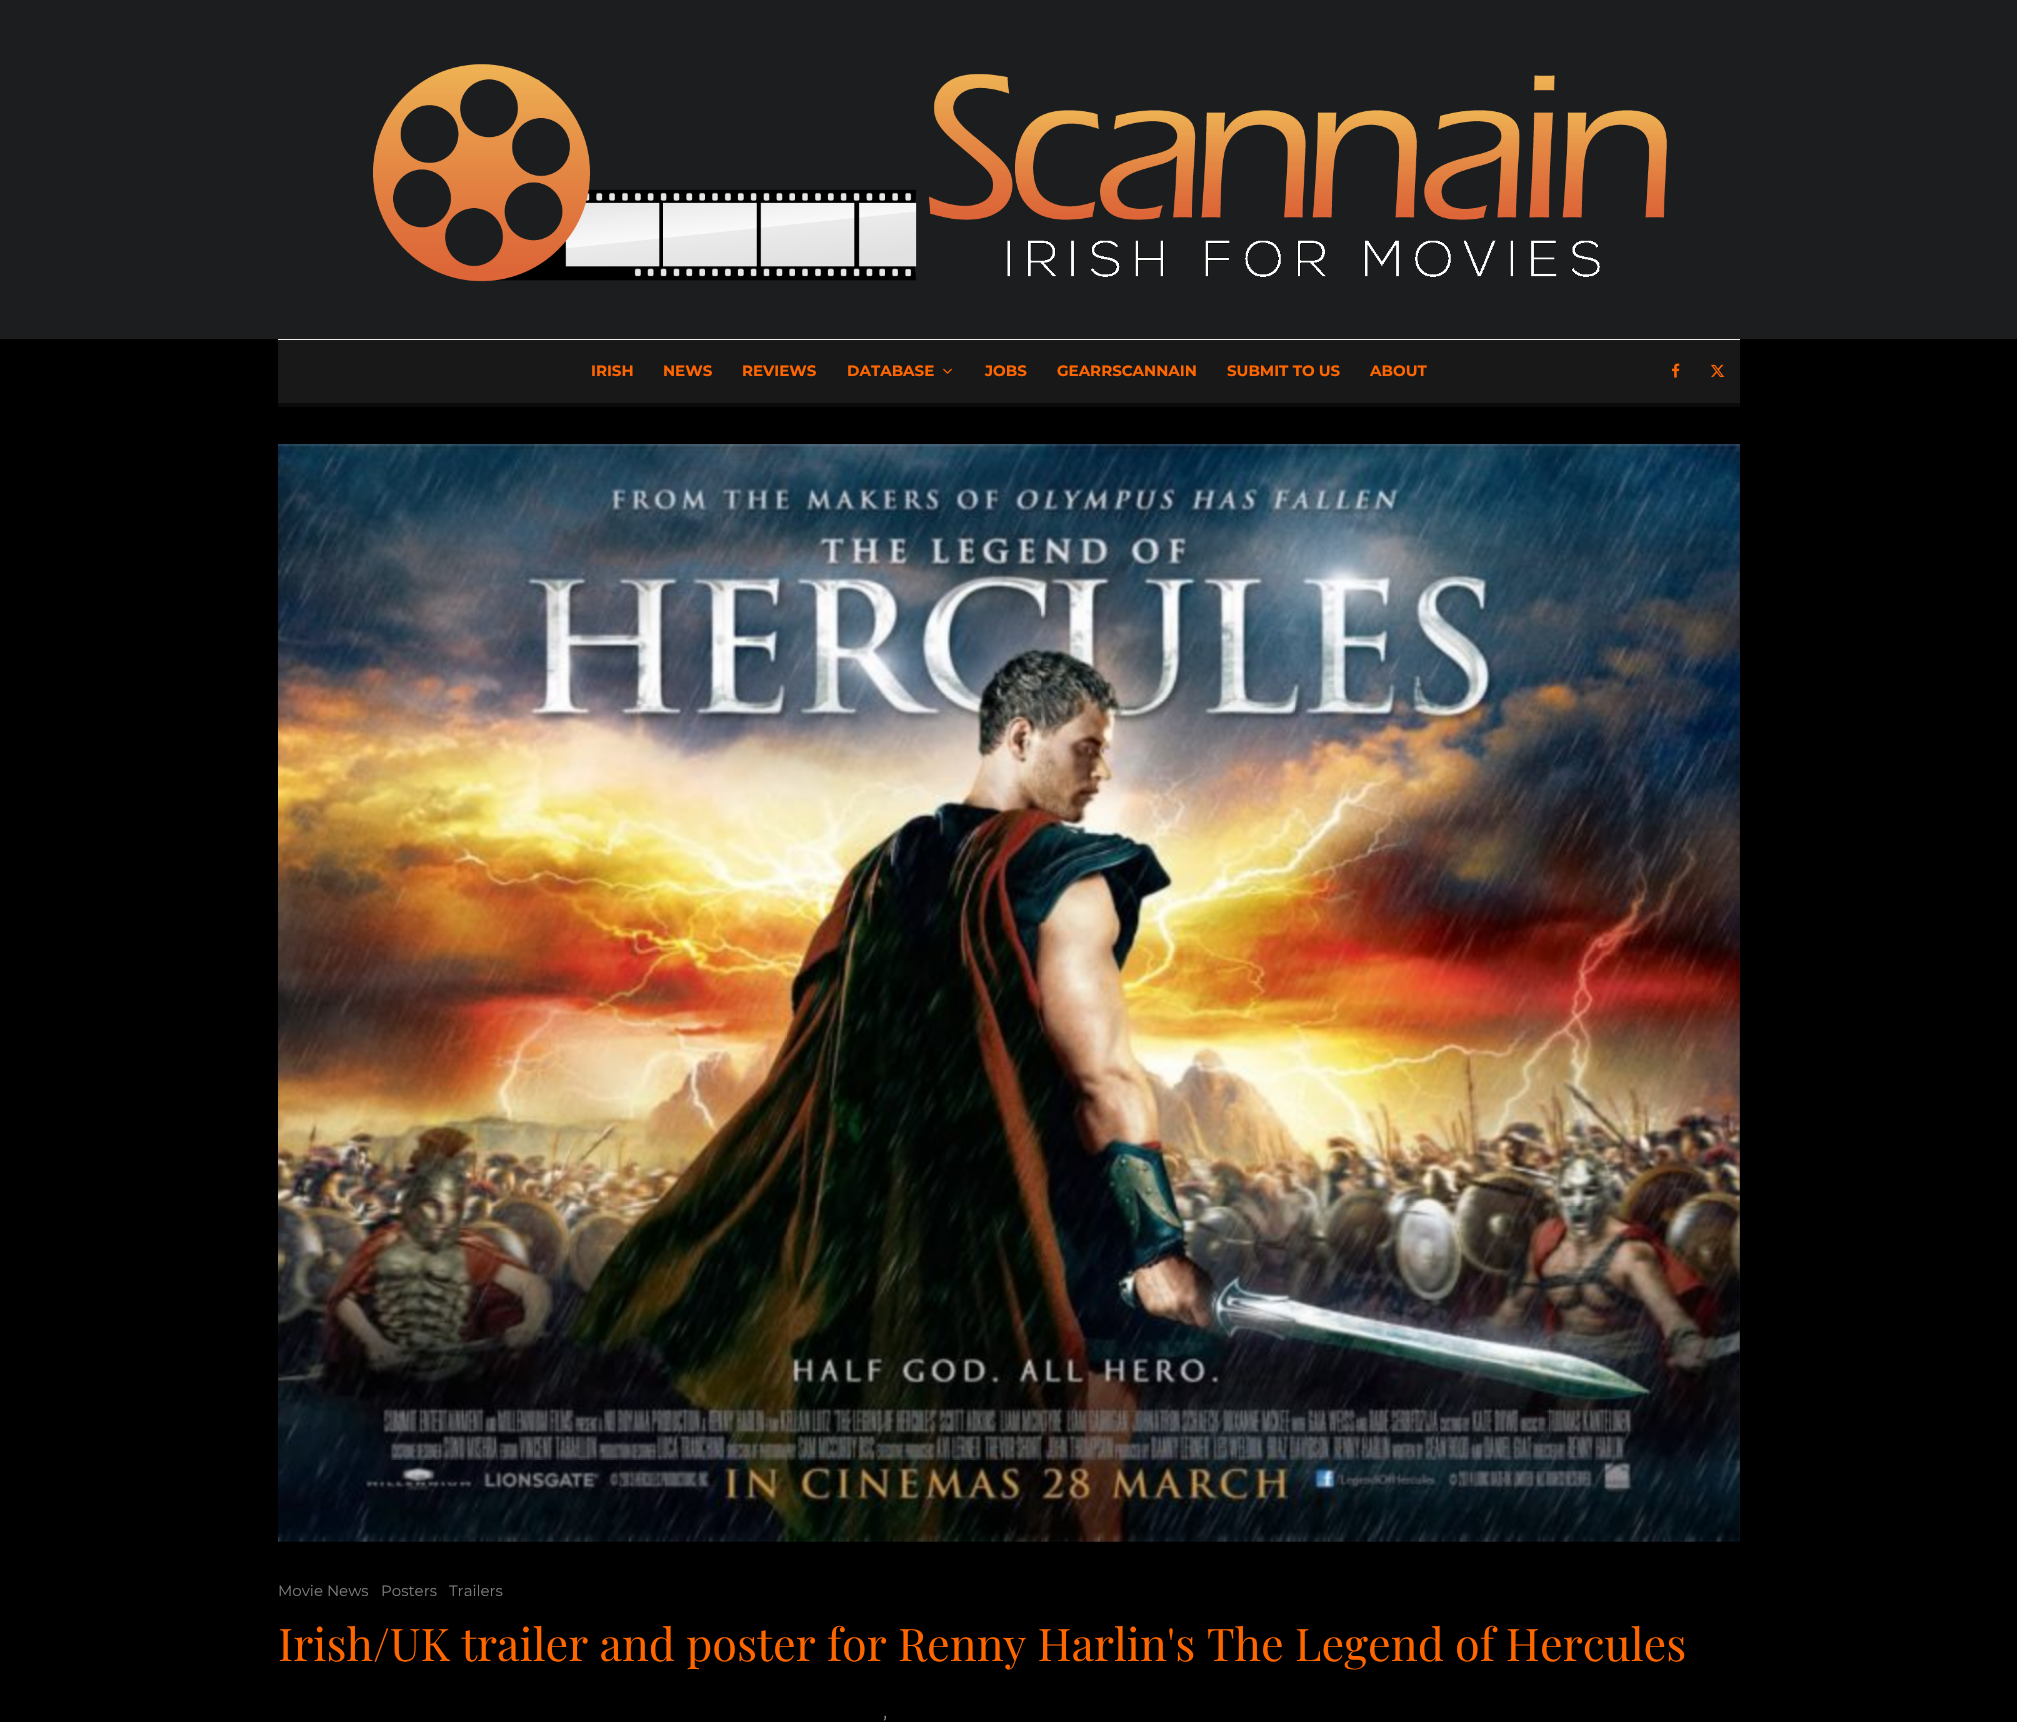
#include "include/core/SkBlurTypes.h"
#include "include/core/SkCanvas.h"
#include "include/core/SkData.h"
#include "include/core/SkFont.h"
#include "include/core/SkFontMgr.h"
#include "include/core/SkImage.h"
#include "include/core/SkMaskFilter.h"
#include "include/core/SkPaint.h"
#include "include/core/SkPathBuilder.h"
#include "include/core/SkTextBlob.h"
#include "include/effects/SkDashPathEffect.h"
#include "include/effects/SkGradientShader.h"
#include "include/utils/SkParsePath.h"

extern sk_sp<SkFontMgr> fontMgr;

void draw(SkCanvas* canvas) {
    SkPaint p;
    p.setAntiAlias(true);
    auto font = [&](const char* family, int weight, float size, bool italic = false) {
        SkFontStyle style(weight, SkFontStyle::kNormal_Width,
            italic ? SkFontStyle::kItalic_Slant : SkFontStyle::kUpright_Slant);
        SkFont result(fontMgr->matchFamilyStyle(family, style), size);
        result.setSubpixel(true);
        return result;
    };
    auto drawPhoto = [&](const char* path, float l, float t, float r, float b) {
        auto image = SkImages::DeferredFromEncodedData(SkData::MakeFromFileName(path));
        canvas->drawImageRect(image, SkRect::MakeLTRB(l, t, r, b), SkSamplingOptions());
    };
    canvas->clear(0xFF000000);
    p.setColor(0xFF1C1D1E);
    canvas->drawRect(SkRect::MakeLTRB(0, 0, 2017, 339), p);
    drawPhoto("media/1.png", 373, 64, 1667, 282);
    {
        const struct { float l, t, r, b; SkColor color; } items[] = {
            {278, 340, 1740, 403, 0xFF181818},
            {278, 339, 1740, 340, 0xFFEEEEEE},
            {278, 403, 1740, 407, 0xFF0A0A0A},
        };
        for (auto [l, t, r, b, color] : items) {
            p.setColor(color);
            canvas->drawRect(SkRect::MakeLTRB(l, t, r, b), p);
        }
    }
    auto font1 = font("Montserrat", 700, 15);
    p.setColor(0xFFFF6600);
    {
        const struct { const char* s; float x, y; } items[] = {
            {"IRISH", 591, 376},
            {"NEWS", 663, 376},
            {"REVIEWS", 742, 376},
            {"DATABASE", 847, 376},
        };
        for (auto [s, x, y] : items) {
            canvas->drawString(s, x, y, font1, p);
        }
    }
    drawPhoto("media/2.png", 943, 368, 952, 374);
    {
        const struct { const char* s; float x, y; } items[] = {
            {"JOBS", 985, 376},
            {"GEARRSCANNAIN", 1057, 376},
            {"SUBMIT TO US", 1227, 376},
            {"ABOUT", 1370, 376},
        };
        for (auto [s, x, y] : items) {
            canvas->drawString(s, x, y, font1, p);
        }
    }
    drawPhoto("media/3.png", 1672, 363, 1680, 378);
    drawPhoto("media/4.png", 1711, 364, 1725, 377);
    p.setColor(0xFF1D1D1D);
    canvas->drawRect(SkRect::MakeLTRB(278, 444, 1740, 1541), p);
    drawPhoto("media/5.png", 278, 444, 1740, 1542);
    auto font2 = font("Montserrat", 400, 15);
    p.setColor(0xFF7B7B7B);
    {
        const struct { const char* s; float x, y; } items[] = {
            {"Movie News", 278, 1596},
            {"Posters", 381, 1596},
            {"Trailers", 449, 1596},
        };
        for (auto [s, x, y] : items) {
            canvas->drawString(s, x, y, font2, p);
        }
    }
    auto font3 = font("Playfair Display", 400, 45);
    p.setColor(0xFFFF6600);
    canvas->drawString("Irish/UK trailer and poster for Renny Harlin's The Legend of Hercules", 278, 1661, font3, p);
    auto font4 = font("Lato", 400, 19);
    p.setColor(0xFF898989);
    canvas->drawString("’", 883, 1730, font4, p);
}
